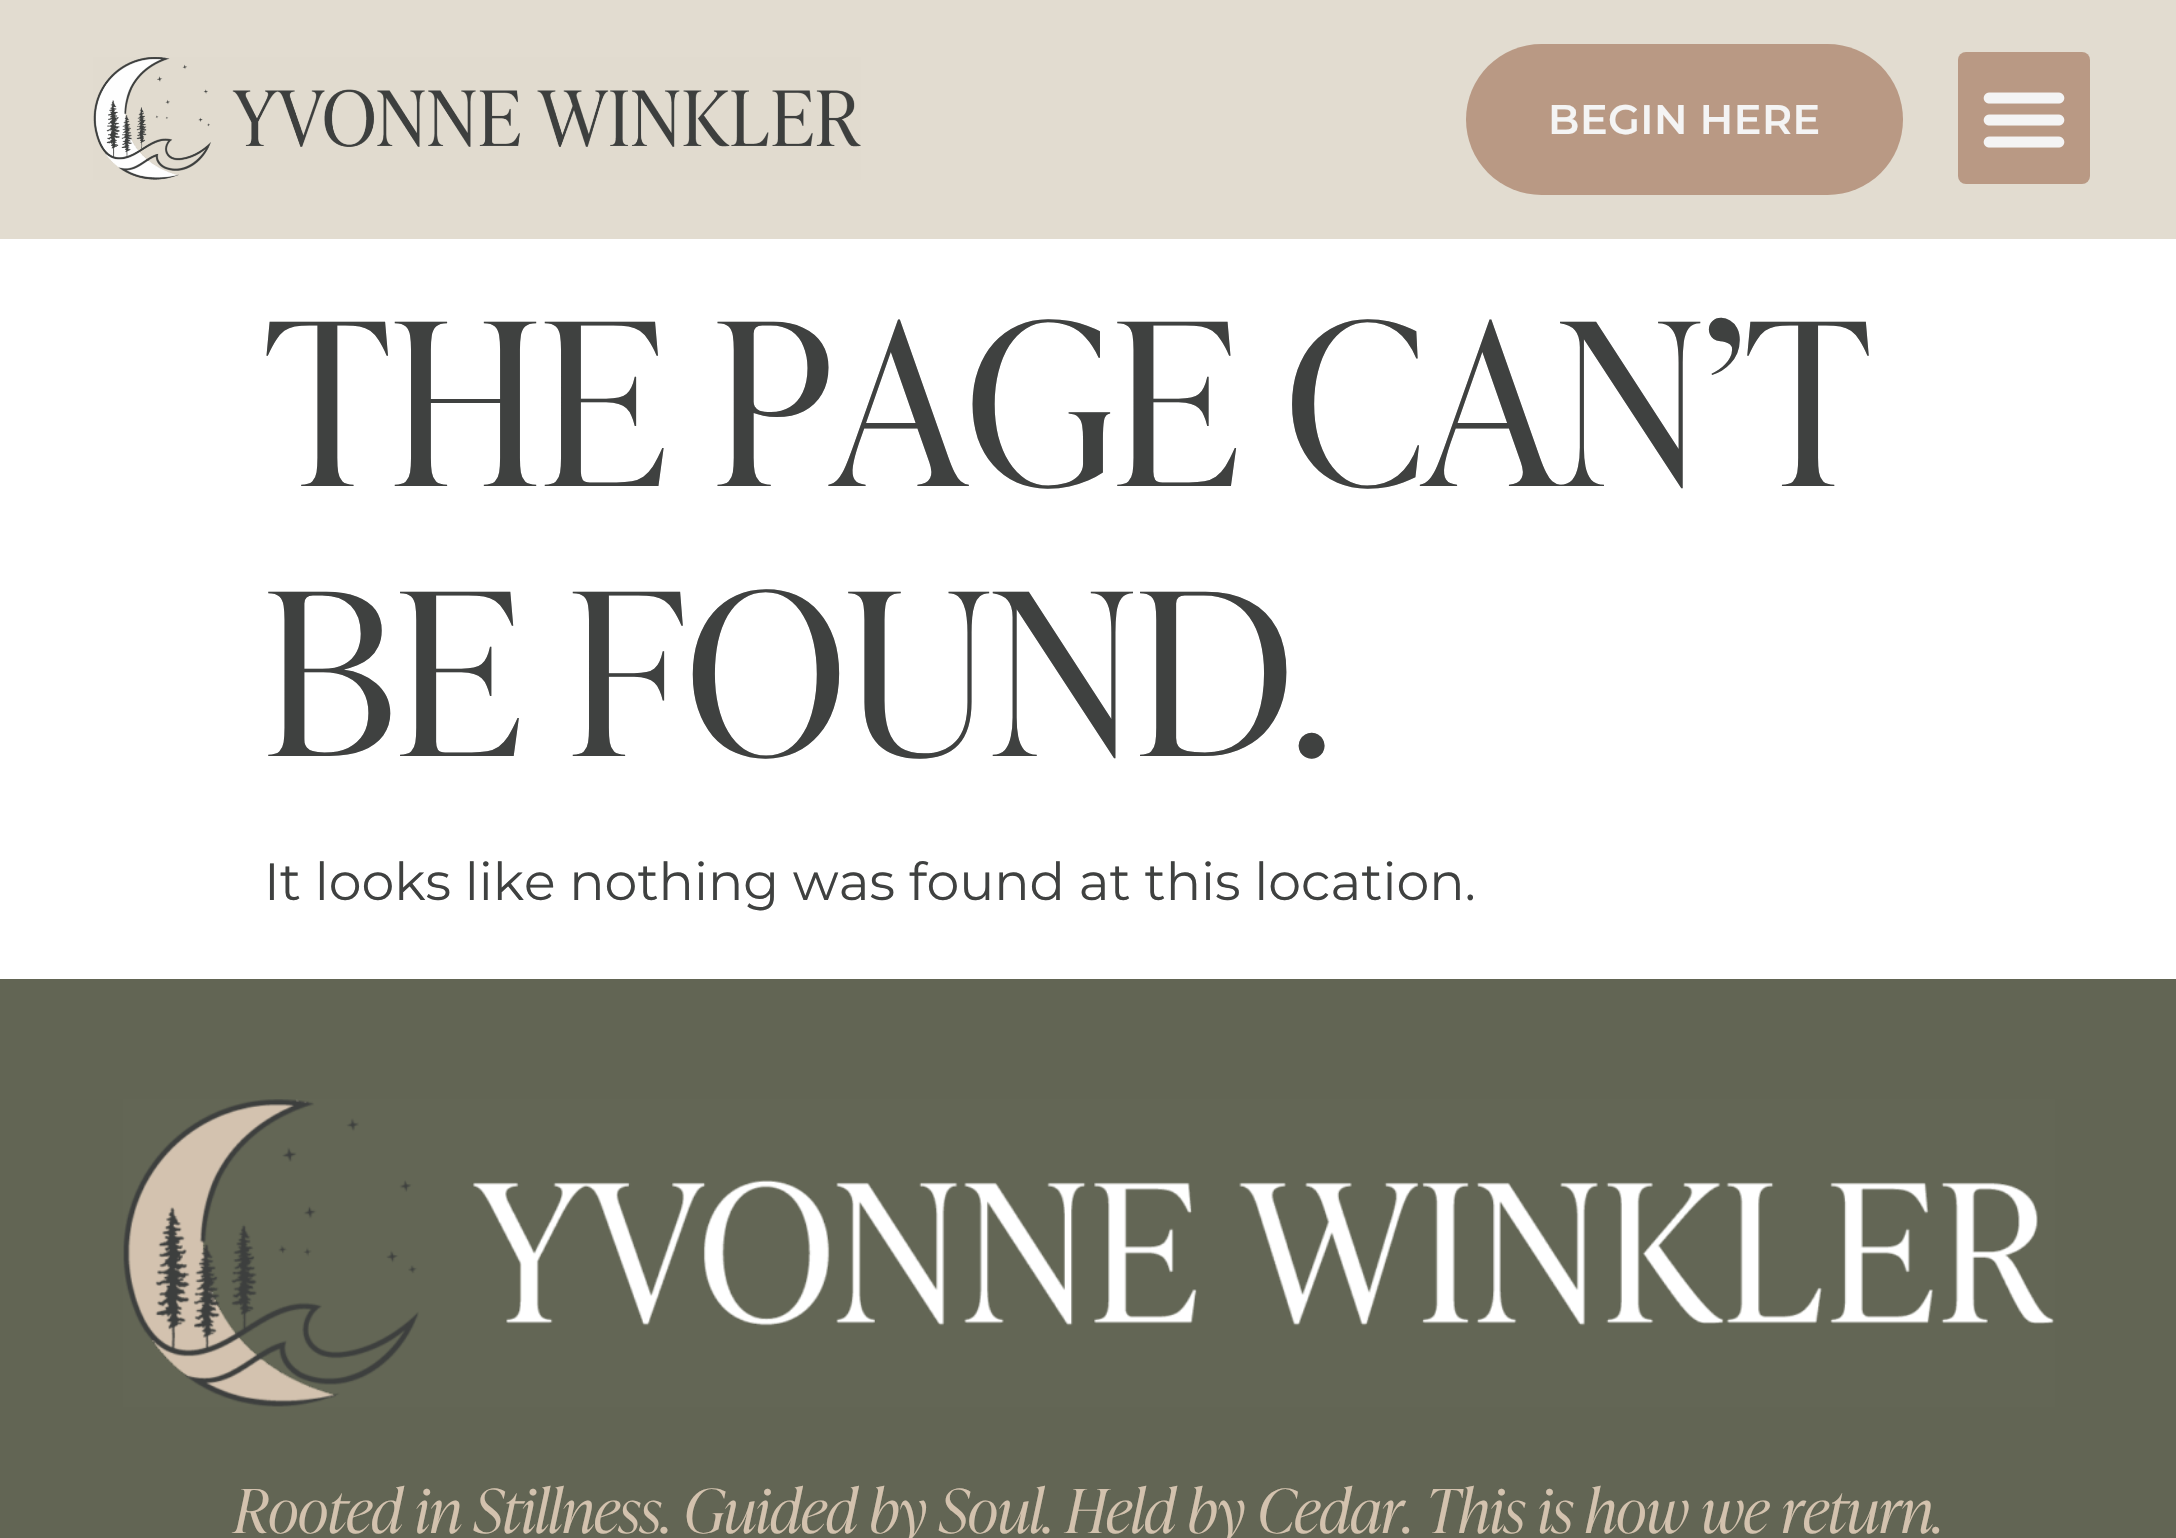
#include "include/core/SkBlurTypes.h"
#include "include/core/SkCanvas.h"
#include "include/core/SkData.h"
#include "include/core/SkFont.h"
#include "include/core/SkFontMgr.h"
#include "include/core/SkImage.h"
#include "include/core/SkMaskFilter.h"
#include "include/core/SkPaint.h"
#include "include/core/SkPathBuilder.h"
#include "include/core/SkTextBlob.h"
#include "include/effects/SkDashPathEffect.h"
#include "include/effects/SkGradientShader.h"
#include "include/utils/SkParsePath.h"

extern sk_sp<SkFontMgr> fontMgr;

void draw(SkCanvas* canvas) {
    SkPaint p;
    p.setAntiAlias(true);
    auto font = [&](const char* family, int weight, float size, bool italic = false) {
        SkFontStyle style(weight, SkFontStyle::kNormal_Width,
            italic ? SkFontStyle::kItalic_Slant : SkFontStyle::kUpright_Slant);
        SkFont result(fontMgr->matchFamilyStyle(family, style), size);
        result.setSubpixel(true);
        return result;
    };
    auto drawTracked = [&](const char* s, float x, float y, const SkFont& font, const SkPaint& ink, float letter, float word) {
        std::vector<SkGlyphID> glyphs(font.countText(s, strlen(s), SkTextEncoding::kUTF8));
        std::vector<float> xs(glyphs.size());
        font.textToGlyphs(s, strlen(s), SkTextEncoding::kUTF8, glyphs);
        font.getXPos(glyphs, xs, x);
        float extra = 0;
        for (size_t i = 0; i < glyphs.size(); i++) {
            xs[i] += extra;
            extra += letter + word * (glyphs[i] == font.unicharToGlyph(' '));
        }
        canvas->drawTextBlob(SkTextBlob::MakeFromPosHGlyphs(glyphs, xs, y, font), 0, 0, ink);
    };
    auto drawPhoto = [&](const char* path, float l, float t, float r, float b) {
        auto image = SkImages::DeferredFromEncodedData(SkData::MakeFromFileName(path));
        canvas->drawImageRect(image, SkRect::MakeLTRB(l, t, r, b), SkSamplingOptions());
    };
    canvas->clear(0xFFFFFFFF);
    p.setColor(0xFFE2DCD0);
    canvas->drawRect(SkRect::MakeLTRB(0, 0, 2176, 239), p);
    drawPhoto("media/1.png", 93, 57, 861, 180);
    p.setColor(0xFFB99984);
    canvas->drawRoundRect(SkRect::MakeLTRB(1466, 44, 1903, 195), 75.5f, 75.5f, p);
    auto font1 = font("Montserrat", 600, 41.25f);
    p.setColor(0xFFF4F4F4);
    drawTracked("BEGIN HERE", 1548, 134, font1, p, 0.5f, 0);
    p.setColor(0xFFB99984);
    canvas->drawRoundRect(SkRect::MakeLTRB(1958, 52, 2090, 184), 8, 8, p);
    drawPhoto("media/2.png", 1983, 92, 2065, 148);
    auto font2 = font("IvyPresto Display", 300, 225.5f);
    p.setColor(0xFF3F4140);
    canvas->drawString("THE PAGE CAN’T", 264, 486, font2, p);
    canvas->drawString("BE FOUND.", 264, 756, font2, p);
    auto font3 = font("Montserrat", 400, 52.25f);
    canvas->drawString("It looks like nothing was found at this location.", 264, 900, font3, p);
    p.setColor(0xFF626554);
    canvas->drawRect(SkRect::MakeLTRB(0, 979, 2176, 1538), p);
    drawPhoto("media/3.png", 123, 1099, 2055, 1407);
    auto font4 = font("IvyPresto Display", 300, 60.5f, true);
    p.setColor(0xFFD3C2AE);
    canvas->drawString("Rooted in Stillness. Guided by Soul. Held by Cedar. This is how we return.", 234, 1533, font4, p);
}
